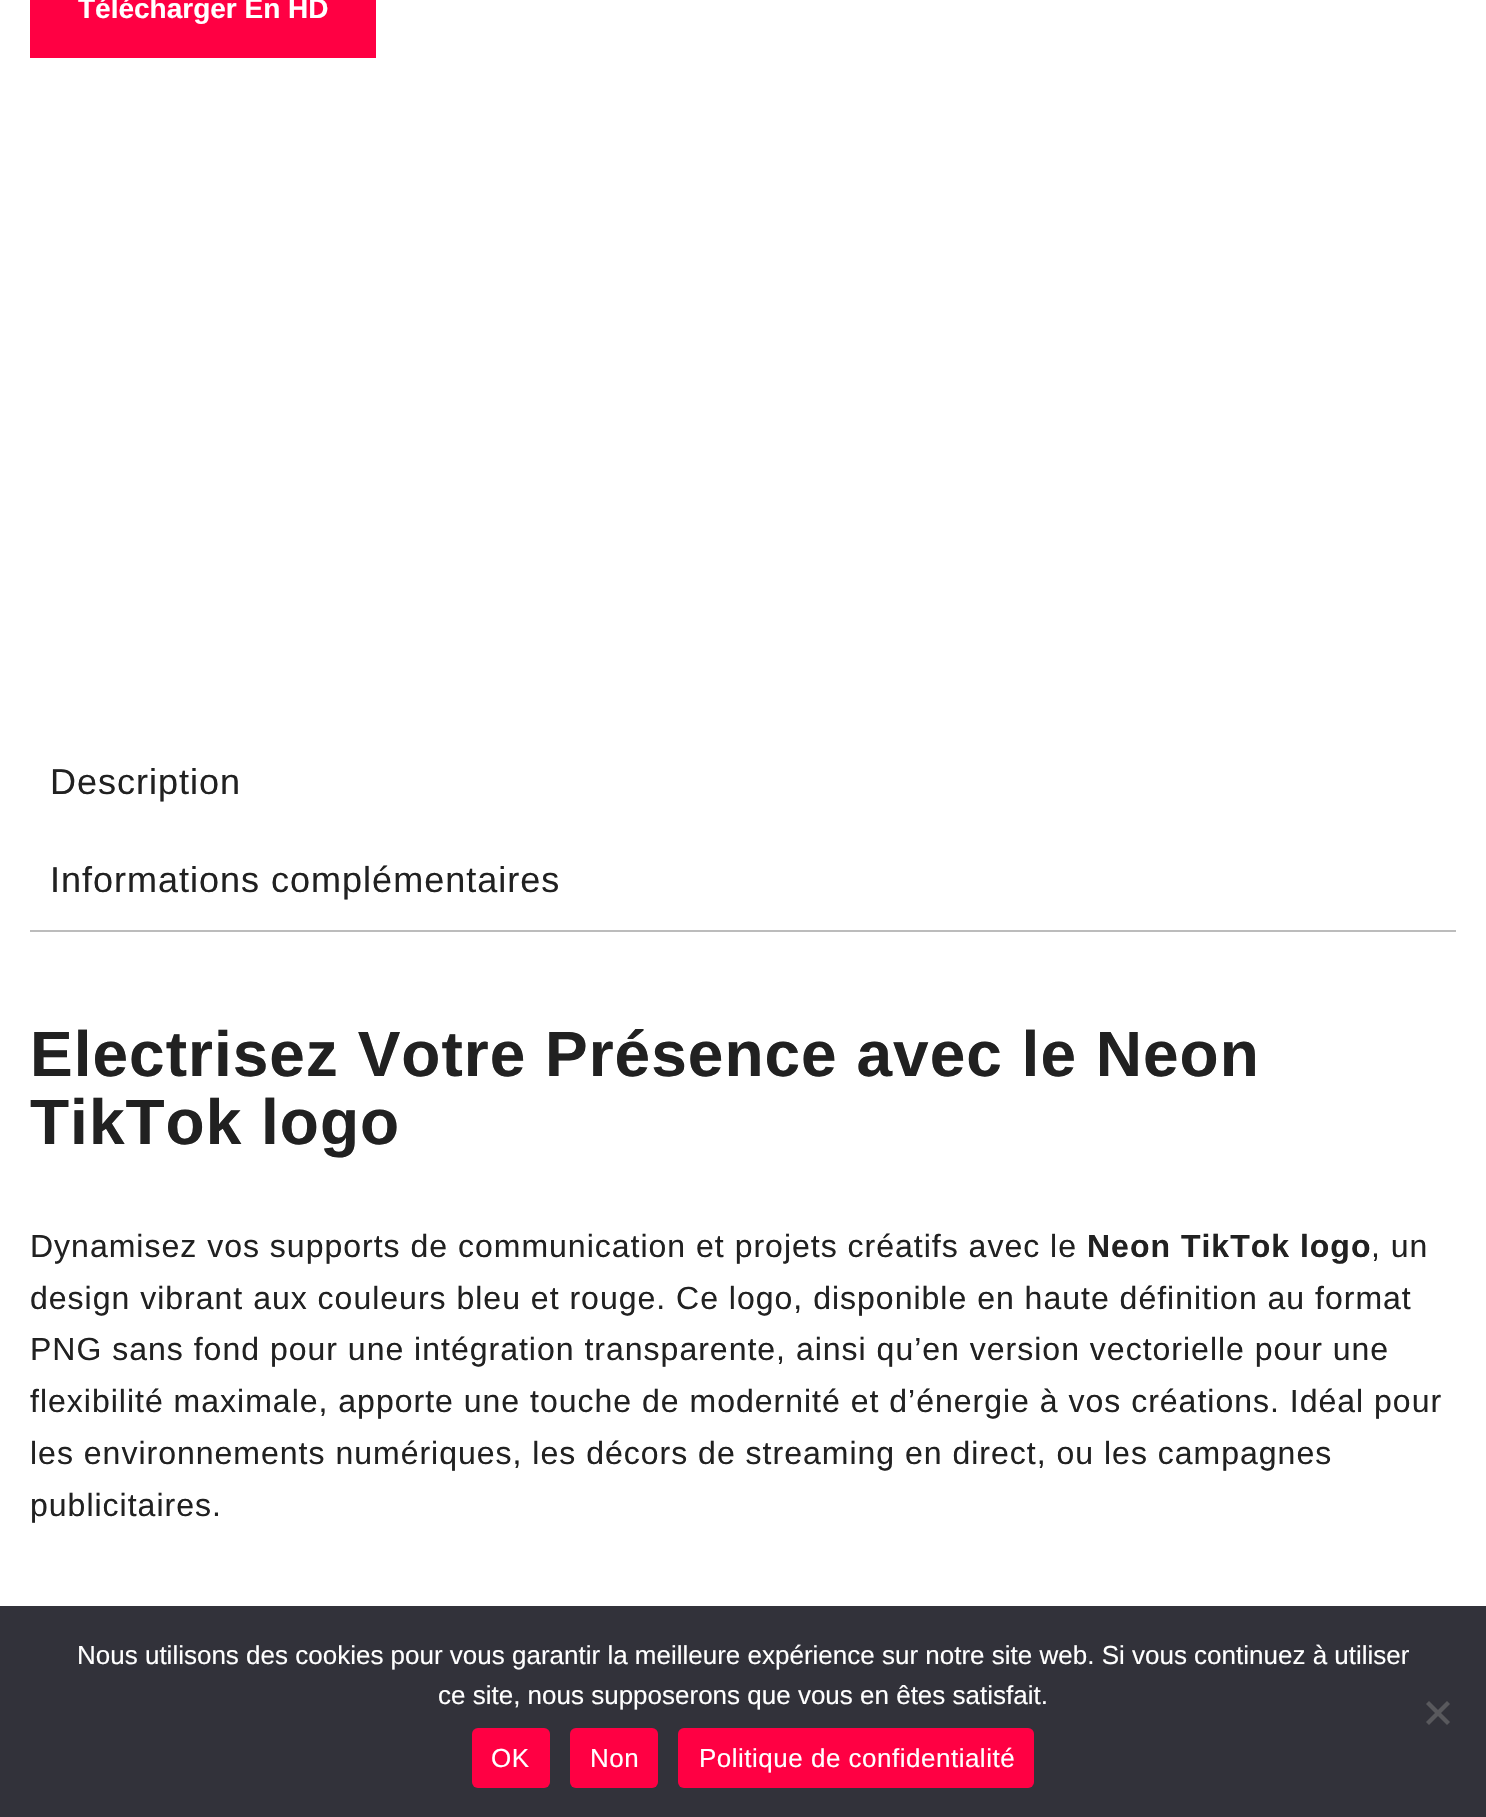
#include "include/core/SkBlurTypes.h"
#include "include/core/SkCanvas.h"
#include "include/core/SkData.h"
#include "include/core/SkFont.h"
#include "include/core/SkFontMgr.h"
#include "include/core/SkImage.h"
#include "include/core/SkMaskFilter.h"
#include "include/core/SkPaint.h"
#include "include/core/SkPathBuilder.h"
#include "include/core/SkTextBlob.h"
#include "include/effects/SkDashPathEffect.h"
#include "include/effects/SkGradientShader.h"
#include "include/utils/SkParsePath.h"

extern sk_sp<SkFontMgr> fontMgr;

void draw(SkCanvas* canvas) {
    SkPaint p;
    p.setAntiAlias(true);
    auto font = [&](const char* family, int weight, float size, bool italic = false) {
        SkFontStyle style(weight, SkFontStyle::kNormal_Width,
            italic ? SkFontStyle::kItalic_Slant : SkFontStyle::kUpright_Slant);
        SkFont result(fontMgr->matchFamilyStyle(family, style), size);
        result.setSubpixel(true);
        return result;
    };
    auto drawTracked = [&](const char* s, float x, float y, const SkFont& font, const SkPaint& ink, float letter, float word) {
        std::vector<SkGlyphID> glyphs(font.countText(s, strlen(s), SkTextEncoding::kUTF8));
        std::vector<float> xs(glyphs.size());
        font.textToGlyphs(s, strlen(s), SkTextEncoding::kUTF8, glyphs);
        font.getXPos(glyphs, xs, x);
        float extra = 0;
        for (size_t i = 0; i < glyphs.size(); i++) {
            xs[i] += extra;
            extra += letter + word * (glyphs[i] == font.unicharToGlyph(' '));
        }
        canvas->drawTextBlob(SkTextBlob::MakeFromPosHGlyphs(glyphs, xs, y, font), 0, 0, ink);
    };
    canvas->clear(0xFFFFFFFF);
    p.setColor(0xFFFF0043);
    canvas->drawRect(SkRect::MakeLTRB(30, 0, 376, 58), p);
    auto font1 = font("Liberation Sans", 700, 28);
    p.setColor(0xFFFFFFFF);
    canvas->drawString("Télécharger En HD", 78, 18, font1, p);
    p.setColor(0xFFBCBCBC);
    canvas->drawRect(SkRect::MakeLTRB(30, 930, 1456, 932), p);
    auto font2 = font("Liberation Sans", 400, 36);
    p.setColor(0xFF212121);
    drawTracked("Description", 50, 794, font2, p, 1, 0);
    drawTracked("Informations complémentaires", 50, 892, font2, p, 1, 0);
    auto font3 = font("Liberation Sans", 700, 64);
    drawTracked("Electrisez Votre Présence avec le Neon", 30, 1076, font3, p, 1, 0);
    drawTracked("TikTok logo", 30, 1144, font3, p, 1, 0);
    auto font4 = font("Liberation Sans", 400, 32);
    drawTracked("Dynamisez vos supports de communication et projets créatifs avec le", 30, 1257, font4, p, 1, 0);
    auto font5 = font("Liberation Sans", 700, 32);
    drawTracked("Neon TikTok logo", 1087, 1257, font5, p, 1, 0);
    {
        const struct { const char* s; float x, y; } items[] = {
            {", un", 1371, 1257},
            {"design vibrant aux couleurs bleu et rouge. Ce logo, disponible en haute définition au format", 30, 1309},
            {"PNG sans fond pour une intégration transparente, ainsi qu’en version vectorielle pour une", 30, 1360},
            {"flexibilité maximale, apporte une touche de modernité et d’énergie à vos créations. Idéal pour", 30, 1412},
            {"les environnements numériques, les décors de streaming en direct, ou les campagnes", 30, 1464},
            {"publicitaires.", 30, 1516},
        };
        for (auto [s, x, y] : items) {
            drawTracked(s, x, y, font4, p, 1, 0);
        }
    }
    p.setColor(0xFF32323A);
    canvas->drawRect(SkRect::MakeLTRB(0, 1606, 1486, 1817), p);
    auto font6 = font("Liberation Sans", 400, 26);
    p.setColor(0xFFFFFFFF);
    canvas->drawString("Nous utilisons des cookies pour vous garantir la meilleure expérience sur notre site web. Si vous continuez à utiliser", 77, 1664, font6, p);
    canvas->drawString("ce site, nous supposerons que vous en êtes satisfait.", 438, 1704, font6, p);
    p.setColor(0xFF59595D);
    canvas->drawPath(SkPathBuilder().moveTo(1447, 1701).lineTo(1450, 1704).lineTo(1429, 1725).lineTo(1426, 1722).close().detach(), p);
    canvas->drawPath(SkPathBuilder().moveTo(1426, 1704).lineTo(1429, 1701).lineTo(1450, 1722).lineTo(1447, 1725).close().detach(), p);
    p.setColor(0xFFFF0043);
    canvas->drawRoundRect(SkRect::MakeLTRB(472, 1728, 550, 1788), 6, 6, p);
    p.setColor(0xFFFFFFFF);
    drawTracked("OK", 491, 1767, font6, p, 0.5f, 0);
    p.setColor(0xFFFF0043);
    canvas->drawRoundRect(SkRect::MakeLTRB(570, 1728, 658, 1788), 6, 6, p);
    p.setColor(0xFFFFFFFF);
    drawTracked("Non", 590, 1767, font6, p, 0.5f, 0);
    p.setColor(0xFFFF0043);
    canvas->drawRoundRect(SkRect::MakeLTRB(678, 1728, 1034, 1788), 6, 6, p);
    p.setColor(0xFFFFFFFF);
    drawTracked("Politique de confidentialité", 699, 1767, font6, p, 0.5f, 0);
}
